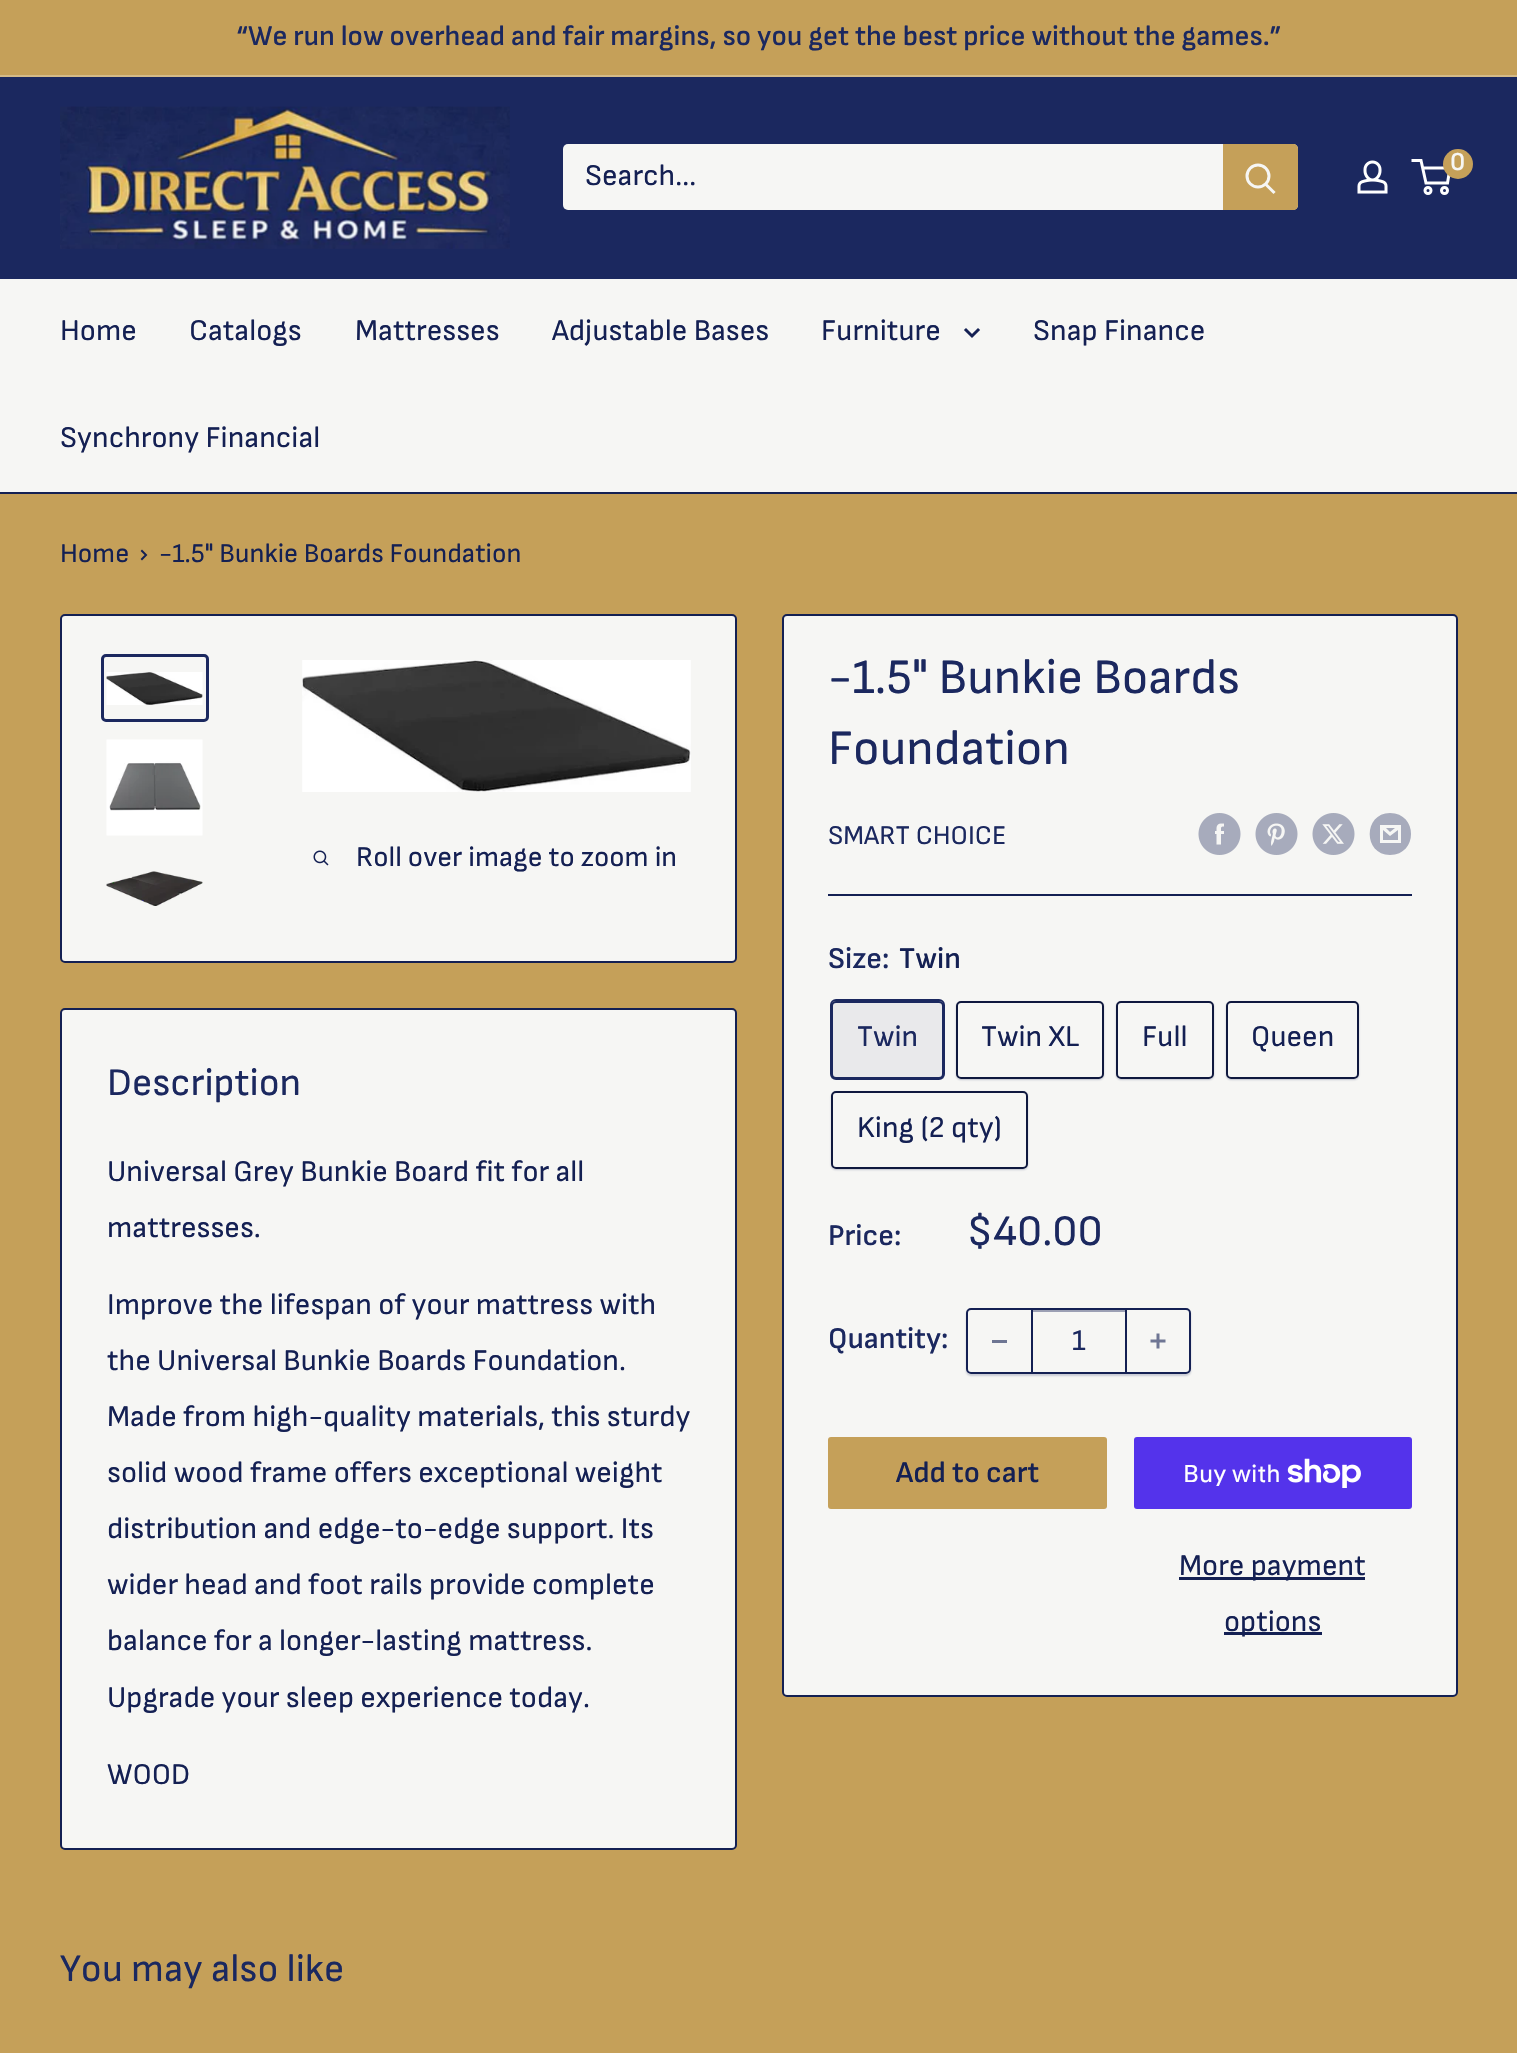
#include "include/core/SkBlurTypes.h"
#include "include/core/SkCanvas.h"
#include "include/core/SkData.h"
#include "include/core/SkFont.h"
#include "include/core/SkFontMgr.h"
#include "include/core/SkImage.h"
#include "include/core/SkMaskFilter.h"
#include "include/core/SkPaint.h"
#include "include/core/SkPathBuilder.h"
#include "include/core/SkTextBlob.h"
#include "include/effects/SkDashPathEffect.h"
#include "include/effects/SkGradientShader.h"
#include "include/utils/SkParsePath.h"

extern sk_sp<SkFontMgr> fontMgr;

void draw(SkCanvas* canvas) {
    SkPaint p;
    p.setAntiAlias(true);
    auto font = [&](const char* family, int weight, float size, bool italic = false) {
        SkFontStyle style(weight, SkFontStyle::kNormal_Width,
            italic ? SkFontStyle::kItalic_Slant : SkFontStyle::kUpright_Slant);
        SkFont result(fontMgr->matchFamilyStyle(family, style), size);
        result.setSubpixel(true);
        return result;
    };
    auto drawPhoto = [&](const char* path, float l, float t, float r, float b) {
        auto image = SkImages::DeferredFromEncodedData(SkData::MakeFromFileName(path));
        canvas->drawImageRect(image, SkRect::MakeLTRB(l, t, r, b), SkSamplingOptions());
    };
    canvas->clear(0xFFC5A059);
    p.setColor(0xFFD4BA88);
    canvas->drawRect(SkRect::MakeLTRB(0, 75, 1517, 77), p);
    auto font1 = font("Sofia Sans", 600, 28.5f);
    p.setColor(0xFF1B285F);
    canvas->drawString("“We run low overhead and fair margins, so you get the best price without the games.”", 236, 45, font1, p);
    canvas->drawRect(SkRect::MakeLTRB(0, 77, 1517, 279), p);
    drawPhoto("media/1.png", 60, 106, 510, 249);
    drawPhoto("media/2.png", 1357, 160, 1388, 194);
    p.setStyle(SkPaint::kStroke_Style);
    p.setStrokeWidth(3);
    p.setColor(0xFFFFFFFF);
    canvas->drawCircle(1428, 190.5f, 3, p);
    canvas->drawCircle(1444.5f, 190.5f, 3, p);
    canvas->drawPath(SkPathBuilder().moveTo(1422.5f, 168).lineTo(1450, 168).lineTo(1447.5f, 183).lineTo(1426, 183).lineTo(1421, 160.5f).lineTo(1411.5f, 160.5f).detach(), p);
    p.setStyle(SkPaint::kFill_Style);
    p.setColor(0xFFC5A059);
    canvas->drawCircle(1458, 164, 15, p);
    auto font2 = font("Sofia Sans", 600, 26);
    p.setColor(0xFFF6F6F4);
    canvas->drawString("0", 1450, 170, font2, p);
    canvas->drawRoundRect(SkRect::MakeLTRB(563, 144, 1298, 210), 5, 5, p);
    auto font3 = font("Sofia Sans", 400, 30);
    p.setColor(0xFF142053);
    canvas->drawString("Search...", 585, 185, font3, p);
    p.setColor(0xFFC5A059);
    canvas->drawPath(SkPathBuilder().moveTo(1223, 144).lineTo(1293, 144).cubicTo(1296, 144, 1298, 146, 1298, 149).lineTo(1298, 205).cubicTo(1298, 208, 1296, 210, 1293, 210).lineTo(1223, 210).close().detach(), p);
    p.setStyle(SkPaint::kStroke_Style);
    p.setStrokeCap(SkPaint::kSquare_Cap);
    p.setColor(0xFFF6F6F4);
    canvas->drawPath(SkPathBuilder().moveTo(1273.5f, 192).lineTo(1266, 184.5f).detach(), p);
    p.setStrokeCap(SkPaint::kButt_Cap);
    canvas->drawCircle(1258, 176, 11, p);
    p.setStyle(SkPaint::kFill_Style);
    canvas->drawRect(SkRect::MakeLTRB(0, 279, 1517, 492), p);
    p.setColor(0xFF142053);
    canvas->drawRect(SkRect::MakeLTRB(0, 492, 1517, 494), p);
    {
        const struct { const char* s; float x, y; } items[] = {
            {"Home", 60, 340},
            {"Catalogs", 189, 340},
            {"Mattresses", 355, 340},
            {"Adjustable Bases", 552, 340},
            {"Furniture", 821, 340},
        };
        for (auto [s, x, y] : items) {
            canvas->drawString(s, x, y, font3, p);
        }
    }
    p.setStyle(SkPaint::kStroke_Style);
    p.setStrokeCap(SkPaint::kSquare_Cap);
    canvas->drawPath(SkPathBuilder().moveTo(978, 330).lineTo(972, 336).lineTo(966, 330).detach(), p);
    p.setStyle(SkPaint::kFill_Style);
    canvas->drawString("Snap Finance", 1033, 340, font3, p);
    canvas->drawString("Synchrony Financial", 60, 447, font3, p);
    auto font4 = font("Sofia Sans", 400, 27);
    canvas->drawString("Home", 60, 562, font4, p);
    p.setStyle(SkPaint::kStroke_Style);
    p.setStrokeWidth(2);
    canvas->drawPath(SkPathBuilder().moveTo(142, 551).lineTo(146, 555).lineTo(142, 559).detach(), p);
    p.setStyle(SkPaint::kFill_Style);
    canvas->drawString("-1.5\" Bunkie Boards Foundation", 159, 562, font4, p);
    p.setColor(0xFFF6F6F4);
    canvas->drawRoundRect(SkRect::MakeLTRB(61, 615, 736, 962), 4, 4, p);
    p.setStyle(SkPaint::kStroke_Style);
    p.setStrokeCap(SkPaint::kButt_Cap);
    p.setColor(0xFF142053);
    canvas->drawRoundRect(SkRect::MakeLTRB(61, 615, 736, 962), 4, 4, p);
    p.setStrokeWidth(3);
    p.setColor(0xFF1B285F);
    canvas->drawRoundRect(SkRect::MakeLTRB(102.5f, 655.5f, 207.5f, 720.5f), 3.5f, 3.5f, p);
    drawPhoto("media/3.png", 106, 672, 203, 705);
    drawPhoto("media/4.png", 106, 739, 203, 836);
    drawPhoto("media/5.png", 106, 871, 203, 906);
    drawPhoto("media/6.png", 302, 660, 691, 792);
    drawPhoto("media/7.png", 313, 850, 329, 866);
    auto font5 = font("Sofia Sans", 400, 28.5f);
    p.setStyle(SkPaint::kFill_Style);
    p.setColor(0xFF142053);
    canvas->drawString("Roll over image to zoom in", 356, 866, font5, p);
    p.setColor(0xFFF6F6F4);
    canvas->drawRoundRect(SkRect::MakeLTRB(783, 615, 1457, 1696), 4, 4, p);
    p.setStyle(SkPaint::kStroke_Style);
    p.setStrokeWidth(2);
    p.setColor(0xFF142053);
    canvas->drawRoundRect(SkRect::MakeLTRB(783, 615, 1457, 1696), 4, 4, p);
    auto font6 = font("Sofia Sans", 400, 49.5f);
    p.setStyle(SkPaint::kFill_Style);
    p.setColor(0xFF1B285F);
    canvas->drawString("-1.5\" Bunkie Boards", 828, 693, font6, p);
    canvas->drawString("Foundation", 828, 764, font6, p);
    canvas->drawString("SMART CHOICE", 828, 844, font4, p);
    drawPhoto("media/8.png", 1198, 813, 1241, 855);
    drawPhoto("media/9.png", 1255, 813, 1298, 855);
    drawPhoto("media/10.png", 1312, 813, 1355, 855);
    p.setColor(0xFFA7ABBC);
    canvas->drawPath(SkPathBuilder().moveTo(1390, 855).cubicTo(1363, 855, 1363, 813, 1390, 813).cubicTo(1418, 813, 1418, 855, 1390, 855).close().moveTo(1386, 828).lineTo(1395, 828).lineTo(1390, 832).close().moveTo(1398, 830).lineTo(1398, 840).lineTo(1383, 840).lineTo(1383, 830).lineTo(1390, 836).close().moveTo(1401, 825).lineTo(1380, 825).lineTo(1380, 843).lineTo(1401, 843).close().detach(), p);
    p.setColor(0xFF142053);
    canvas->drawRect(SkRect::MakeLTRB(828, 894, 1412, 896), p);
    auto font7 = font("Sofia Sans", 600, 30);
    p.setColor(0xFF1B285F);
    canvas->drawString("Size:", 828, 968, font7, p);
    p.setColor(0xFF142053);
    canvas->drawString("Twin", 899, 968, font7, p);
    p.setStyle(SkPaint::kStroke_Style);
    p.setColor(0xFF1B285F);
    canvas->drawRoundRect(SkRect::MakeLTRB(831, 1000, 944, 1079), 5, 5, p);
    p.setStyle(SkPaint::kFill_Style);
    p.setColor(0x0F1B285F);
    canvas->drawRect(SkRect::MakeLTRB(831, 1001, 944, 1079), p);
    p.setStyle(SkPaint::kStroke_Style);
    p.setColor(0xFF1B285F);
    canvas->drawRoundRect(SkRect::MakeLTRB(832, 1002, 943, 1078), 4, 4, p);
    p.setStyle(SkPaint::kFill_Style);
    canvas->drawString("Twin", 857, 1046, font3, p);
    canvas->save();
    canvas->clipPath(SkPathBuilder(SkPathFillType::kEvenOdd).moveTo(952, 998).lineTo(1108, 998).lineTo(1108, 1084).lineTo(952, 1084).close().moveTo(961, 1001).lineTo(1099, 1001).cubicTo(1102, 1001, 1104, 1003, 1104, 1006).lineTo(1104, 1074).cubicTo(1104, 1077, 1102, 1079, 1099, 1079).lineTo(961, 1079).cubicTo(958, 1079, 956, 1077, 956, 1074).lineTo(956, 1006).cubicTo(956, 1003, 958, 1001, 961, 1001).close().detach(), true);
    p.setColor(0x40142053);
    p.setMaskFilter(SkMaskFilter::MakeBlur(kNormal_SkBlurStyle, 1));
    canvas->drawRoundRect(SkRect::MakeLTRB(956, 1002, 1104, 1080), 5, 5, p);
    p.setMaskFilter(nullptr);
    canvas->restore();
    p.setStyle(SkPaint::kStroke_Style);
    p.setColor(0xFF0F183E);
    canvas->drawRoundRect(SkRect::MakeLTRB(957, 1002, 1103, 1078), 4, 4, p);
    p.setStyle(SkPaint::kFill_Style);
    p.setColor(0xFF142053);
    canvas->drawString("Twin XL", 981, 1046, font3, p);
    canvas->save();
    canvas->clipPath(SkPathBuilder(SkPathFillType::kEvenOdd).moveTo(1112, 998).lineTo(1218, 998).lineTo(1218, 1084).lineTo(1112, 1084).close().moveTo(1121, 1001).lineTo(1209, 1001).cubicTo(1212, 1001, 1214, 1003, 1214, 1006).lineTo(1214, 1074).cubicTo(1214, 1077, 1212, 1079, 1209, 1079).lineTo(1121, 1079).cubicTo(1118, 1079, 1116, 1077, 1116, 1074).lineTo(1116, 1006).cubicTo(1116, 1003, 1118, 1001, 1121, 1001).close().detach(), true);
    p.setColor(0x40142053);
    p.setMaskFilter(SkMaskFilter::MakeBlur(kNormal_SkBlurStyle, 1));
    canvas->drawRoundRect(SkRect::MakeLTRB(1116, 1002, 1214, 1080), 5, 5, p);
    p.setMaskFilter(nullptr);
    canvas->restore();
    p.setStyle(SkPaint::kStroke_Style);
    p.setColor(0xFF0F183E);
    canvas->drawRoundRect(SkRect::MakeLTRB(1117, 1002, 1213, 1078), 4, 4, p);
    p.setStyle(SkPaint::kFill_Style);
    p.setColor(0xFF142053);
    canvas->drawString("Full", 1142, 1046, font3, p);
    canvas->save();
    canvas->clipPath(SkPathBuilder(SkPathFillType::kEvenOdd).moveTo(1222, 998).lineTo(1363, 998).lineTo(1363, 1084).lineTo(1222, 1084).close().moveTo(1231, 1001).lineTo(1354, 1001).cubicTo(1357, 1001, 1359, 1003, 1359, 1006).lineTo(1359, 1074).cubicTo(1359, 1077, 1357, 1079, 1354, 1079).lineTo(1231, 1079).cubicTo(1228, 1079, 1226, 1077, 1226, 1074).lineTo(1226, 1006).cubicTo(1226, 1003, 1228, 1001, 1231, 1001).close().detach(), true);
    p.setColor(0x40142053);
    p.setMaskFilter(SkMaskFilter::MakeBlur(kNormal_SkBlurStyle, 1));
    canvas->drawRoundRect(SkRect::MakeLTRB(1226, 1002, 1359, 1080), 5, 5, p);
    p.setMaskFilter(nullptr);
    canvas->restore();
    p.setStyle(SkPaint::kStroke_Style);
    p.setColor(0xFF0F183E);
    canvas->drawRoundRect(SkRect::MakeLTRB(1227, 1002, 1358, 1078), 4, 4, p);
    p.setStyle(SkPaint::kFill_Style);
    p.setColor(0xFF142053);
    canvas->drawString("Queen", 1251, 1046, font3, p);
    canvas->save();
    canvas->clipPath(SkPathBuilder(SkPathFillType::kEvenOdd).moveTo(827, 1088).lineTo(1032, 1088).lineTo(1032, 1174).lineTo(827, 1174).close().moveTo(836, 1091).lineTo(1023, 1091).cubicTo(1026, 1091, 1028, 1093, 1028, 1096).lineTo(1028, 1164).cubicTo(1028, 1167, 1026, 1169, 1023, 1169).lineTo(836, 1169).cubicTo(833, 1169, 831, 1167, 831, 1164).lineTo(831, 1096).cubicTo(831, 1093, 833, 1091, 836, 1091).close().detach(), true);
    p.setColor(0x40142053);
    p.setMaskFilter(SkMaskFilter::MakeBlur(kNormal_SkBlurStyle, 1));
    canvas->drawRoundRect(SkRect::MakeLTRB(831, 1092, 1028, 1170), 5, 5, p);
    p.setMaskFilter(nullptr);
    canvas->restore();
    p.setStyle(SkPaint::kStroke_Style);
    p.setColor(0xFF0F183E);
    canvas->drawRoundRect(SkRect::MakeLTRB(832, 1092, 1027, 1168), 4, 4, p);
    p.setStyle(SkPaint::kFill_Style);
    p.setColor(0xFF142053);
    canvas->drawString("King (2 qty)", 857, 1137, font3, p);
    p.setColor(0xFF1B285F);
    canvas->drawString("Price:", 828, 1245, font7, p);
    auto font8 = font("Sofia Sans", 400, 43.5f);
    canvas->drawString("$40.00", 966, 1245, font8, p);
    canvas->drawString("Quantity:", 828, 1348, font7, p);
    canvas->save();
    canvas->clipPath(SkPathBuilder(SkPathFillType::kEvenOdd).moveTo(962, 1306).lineTo(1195, 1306).lineTo(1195, 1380).lineTo(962, 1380).close().moveTo(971, 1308).lineTo(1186, 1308).cubicTo(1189, 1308, 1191, 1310, 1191, 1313).lineTo(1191, 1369).cubicTo(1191, 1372, 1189, 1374, 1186, 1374).lineTo(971, 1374).cubicTo(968, 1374, 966, 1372, 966, 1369).lineTo(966, 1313).cubicTo(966, 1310, 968, 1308, 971, 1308).close().detach(), true);
    p.setColor(0x33142053);
    p.setMaskFilter(SkMaskFilter::MakeBlur(kNormal_SkBlurStyle, 1));
    canvas->drawRoundRect(SkRect::MakeLTRB(966, 1310, 1191, 1376), 5, 5, p);
    p.setMaskFilter(nullptr);
    canvas->restore();
    p.setStyle(SkPaint::kStroke_Style);
    p.setColor(0xFF142053);
    canvas->drawRoundRect(SkRect::MakeLTRB(967, 1309, 1190, 1373), 4, 4, p);
    p.setStyle(SkPaint::kFill_Style);
    {
        const struct { float l, t, r, b; SkColor color; } items[] = {
            {992, 1340, 1007, 1343, 0xFF6E7693},
            {1032, 1310, 1125, 1312, 0xFF9CA0B4},
            {1125, 1310, 1127, 1373, 0xFF142053},
            {1031, 1310, 1033, 1373, 0xFF142053},
        };
        for (auto [l, t, r, b, color] : items) {
            p.setColor(color);
            canvas->drawRect(SkRect::MakeLTRB(l, t, r, b), p);
        }
    }
    p.setColor(0xFF1B285F);
    canvas->drawString("1", 1072, 1350, font3, p);
    drawPhoto("media/11.png", 1150, 1333, 1166, 1349);
    p.setColor(0xFFC5A059);
    canvas->drawRoundRect(SkRect::MakeLTRB(828, 1437, 1107, 1509), 3, 3, p);
    p.setColor(0xFF142053);
    canvas->drawString("Add to cart", 896, 1482, font7, p);
    p.setColor(0xFF5433EB);
    canvas->drawRoundRect(SkRect::MakeLTRB(1134, 1437, 1412, 1509), 3, 3, p);
    auto font9 = font("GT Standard", 400, 24);
    p.setColor(0xFFFFFFFF);
    canvas->drawString("Buy with", 1183, 1482, font9, p);
    drawPhoto("media/12.png", 1287, 1458, 1361, 1488);
    p.setColor(0xFF142053);
    canvas->drawRect(SkRect::MakeLTRB(1179, 1577, 1365, 1580), p);
    canvas->drawString("More payment", 1179, 1575, font3, p);
    canvas->drawRect(SkRect::MakeLTRB(1224, 1632, 1322, 1635), p);
    canvas->drawString("options", 1224, 1631, font3, p);
    p.setColor(0xFFF6F6F4);
    canvas->drawRoundRect(SkRect::MakeLTRB(61, 1009, 736, 1849), 4, 4, p);
    p.setStyle(SkPaint::kStroke_Style);
    p.setColor(0xFF142053);
    canvas->drawRoundRect(SkRect::MakeLTRB(61, 1009, 736, 1849), 4, 4, p);
    auto font10 = font("Sofia Sans", 400, 39);
    p.setStyle(SkPaint::kFill_Style);
    p.setColor(0xFF1B285F);
    canvas->drawString("Description", 107, 1095, font10, p);
    p.setColor(0xFF142053);
    {
        const struct { const char* s; float x, y; } items[] = {
            {"Universal Grey Bunkie Board fit for all", 107, 1181},
            {"mattresses.", 107, 1237},
            {"Improve the lifespan of your mattress with", 107, 1314},
            {"the Universal Bunkie Boards Foundation.", 107, 1370},
            {"Made from high-quality materials, this sturdy", 107, 1426},
            {"solid wood frame offers exceptional weight", 107, 1482},
            {"distribution and edge-to-edge support. Its", 107, 1538},
            {"wider head and foot rails provide complete", 107, 1594},
            {"balance for a longer-lasting mattress.", 107, 1650},
            {"Upgrade your sleep experience today.", 107, 1707},
            {"WOOD", 107, 1784},
        };
        for (auto [s, x, y] : items) {
            canvas->drawString(s, x, y, font3, p);
        }
    }
    p.setColor(0xFF1B285F);
    canvas->drawString("You may also like", 60, 1981, font10, p);
}
